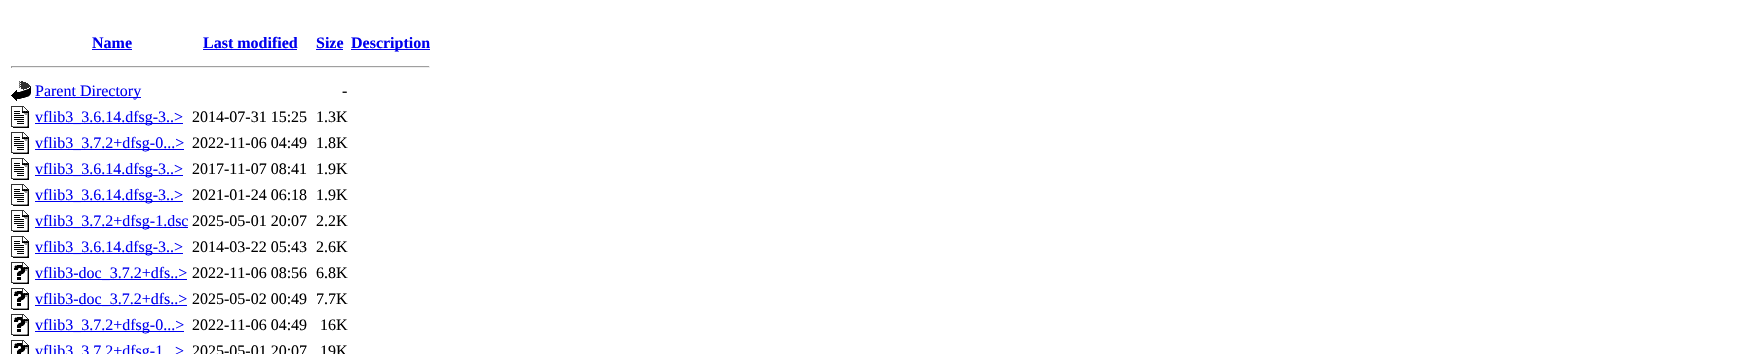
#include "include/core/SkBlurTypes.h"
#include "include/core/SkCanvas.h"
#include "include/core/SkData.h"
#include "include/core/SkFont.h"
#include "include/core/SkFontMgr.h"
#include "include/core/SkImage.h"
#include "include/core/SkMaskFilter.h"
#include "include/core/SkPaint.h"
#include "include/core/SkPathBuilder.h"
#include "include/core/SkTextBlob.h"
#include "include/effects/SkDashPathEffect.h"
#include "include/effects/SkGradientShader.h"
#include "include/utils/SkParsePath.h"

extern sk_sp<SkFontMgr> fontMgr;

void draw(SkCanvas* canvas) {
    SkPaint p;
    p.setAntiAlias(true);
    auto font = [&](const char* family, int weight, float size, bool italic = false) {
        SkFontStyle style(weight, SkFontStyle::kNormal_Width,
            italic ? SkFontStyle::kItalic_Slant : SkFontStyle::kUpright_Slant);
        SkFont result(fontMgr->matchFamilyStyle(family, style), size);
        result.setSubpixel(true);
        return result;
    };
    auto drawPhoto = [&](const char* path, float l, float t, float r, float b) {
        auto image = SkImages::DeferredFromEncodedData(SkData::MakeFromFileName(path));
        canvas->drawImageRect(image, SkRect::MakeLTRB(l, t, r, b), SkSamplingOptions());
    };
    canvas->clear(0xFFFFFFFF);
    auto font1 = font("Liberation Serif", 700, 16);
    p.setColor(0xFF0000EE);
    canvas->drawString("Name", 92, 48, font1, p);
    canvas->drawRect(SkRect::MakeLTRB(92, 49, 132, 50), p);
    canvas->drawString("Last modified", 203, 48, font1, p);
    canvas->drawRect(SkRect::MakeLTRB(203, 49, 297, 50), p);
    canvas->drawString("Size", 316, 48, font1, p);
    canvas->drawRect(SkRect::MakeLTRB(316, 49, 343, 50), p);
    canvas->drawRect(SkRect::MakeLTRB(351, 49, 430, 50), p);
    canvas->drawString("Description", 351, 48, font1, p);
    {
        const struct { float l, t, r, b; SkColor color; } items[] = {
            {11, 66, 430, 67, 0xFF9F9F9F},
            {429, 66, 430, 68, 0xFFEEEEEE},
            {11, 67, 430, 68, 0xFFEEEEEE},
            {11, 66, 12, 68, 0xFF9F9F9F},
        };
        for (auto [l, t, r, b, color] : items) {
            p.setColor(color);
            canvas->drawRect(SkRect::MakeLTRB(l, t, r, b), p);
        }
    }
    drawPhoto("media/1.png", 11, 81, 31, 101);
    p.setColor(0xFF0000EE);
    canvas->drawRect(SkRect::MakeLTRB(35, 97, 141, 98), p);
    auto font2 = font("Liberation Serif", 400, 16);
    canvas->drawString("Parent Directory", 35, 96, font2, p);
    p.setColor(0xFF000000);
    canvas->drawString("-", 342, 96, font2, p);
    drawPhoto("media/2.png", 11, 106, 29, 128);
    p.setColor(0xFF0000EE);
    canvas->drawRect(SkRect::MakeLTRB(35, 123, 183, 124), p);
    canvas->drawString("vflib3_3.6.14.dfsg-3..>", 35, 122, font2, p);
    p.setColor(0xFF000000);
    canvas->drawString("2014-07-31 15:25", 192, 122, font2, p);
    canvas->drawString("1.3K", 316, 122, font2, p);
    drawPhoto("media/2.png", 11, 132, 29, 154);
    p.setColor(0xFF0000EE);
    canvas->drawRect(SkRect::MakeLTRB(35, 149, 184, 150), p);
    canvas->drawString("vflib3_3.7.2+dfsg-0...>", 35, 148, font2, p);
    p.setColor(0xFF000000);
    canvas->drawString("2022-11-06 04:49", 192, 148, font2, p);
    canvas->drawString("1.8K", 316, 148, font2, p);
    drawPhoto("media/2.png", 11, 158, 29, 180);
    p.setColor(0xFF0000EE);
    canvas->drawRect(SkRect::MakeLTRB(35, 175, 183, 176), p);
    canvas->drawString("vflib3_3.6.14.dfsg-3..>", 35, 174, font2, p);
    p.setColor(0xFF000000);
    canvas->drawString("2017-11-07 08:41", 192, 174, font2, p);
    canvas->drawString("1.9K", 316, 174, font2, p);
    drawPhoto("media/2.png", 11, 184, 29, 206);
    p.setColor(0xFF0000EE);
    canvas->drawRect(SkRect::MakeLTRB(35, 201, 183, 202), p);
    canvas->drawString("vflib3_3.6.14.dfsg-3..>", 35, 200, font2, p);
    p.setColor(0xFF000000);
    canvas->drawString("2021-01-24 06:18", 192, 200, font2, p);
    canvas->drawString("1.9K", 316, 200, font2, p);
    drawPhoto("media/2.png", 11, 210, 29, 232);
    p.setColor(0xFF0000EE);
    canvas->drawRect(SkRect::MakeLTRB(35, 227, 188, 228), p);
    canvas->drawString("vflib3_3.7.2+dfsg-1.dsc", 35, 226, font2, p);
    p.setColor(0xFF000000);
    canvas->drawString("2025-05-01 20:07", 192, 226, font2, p);
    canvas->drawString("2.2K", 316, 226, font2, p);
    drawPhoto("media/2.png", 11, 236, 29, 258);
    p.setColor(0xFF0000EE);
    canvas->drawRect(SkRect::MakeLTRB(35, 253, 183, 254), p);
    canvas->drawString("vflib3_3.6.14.dfsg-3..>", 35, 252, font2, p);
    p.setColor(0xFF000000);
    canvas->drawString("2014-03-22 05:43", 192, 252, font2, p);
    canvas->drawString("2.6K", 316, 252, font2, p);
    drawPhoto("media/3.png", 11, 262, 29, 284);
    p.setColor(0xFF0000EE);
    canvas->drawRect(SkRect::MakeLTRB(35, 279, 187, 280), p);
    canvas->drawString("vflib3-doc_3.7.2+dfs..>", 35, 278, font2, p);
    p.setColor(0xFF000000);
    canvas->drawString("2022-11-06 08:56", 192, 278, font2, p);
    canvas->drawString("6.8K", 316, 278, font2, p);
    drawPhoto("media/3.png", 11, 288, 29, 310);
    p.setColor(0xFF0000EE);
    canvas->drawRect(SkRect::MakeLTRB(35, 305, 187, 306), p);
    canvas->drawString("vflib3-doc_3.7.2+dfs..>", 35, 304, font2, p);
    p.setColor(0xFF000000);
    canvas->drawString("2025-05-02 00:49", 192, 304, font2, p);
    canvas->drawString("7.7K", 316, 304, font2, p);
    drawPhoto("media/3.png", 11, 314, 29, 336);
    p.setColor(0xFF0000EE);
    canvas->drawRect(SkRect::MakeLTRB(35, 331, 184, 332), p);
    canvas->drawString("vflib3_3.7.2+dfsg-0...>", 35, 330, font2, p);
    p.setColor(0xFF000000);
    canvas->drawString("2022-11-06 04:49", 192, 330, font2, p);
    canvas->drawString("16K", 320, 330, font2, p);
    drawPhoto("media/4.png", 11, 340, 29, 354);
    p.setColor(0xFF0000EE);
    canvas->drawString("vflib3_3.7.2+dfsg-1", 35, 356, font2, p);
    canvas->drawString(">", 175, 356, font2, p);
    p.setColor(0xFF000000);
    canvas->drawString("2025-05-01 20:07", 192, 356, font2, p);
    canvas->drawString("19K", 320, 356, font2, p);
}
